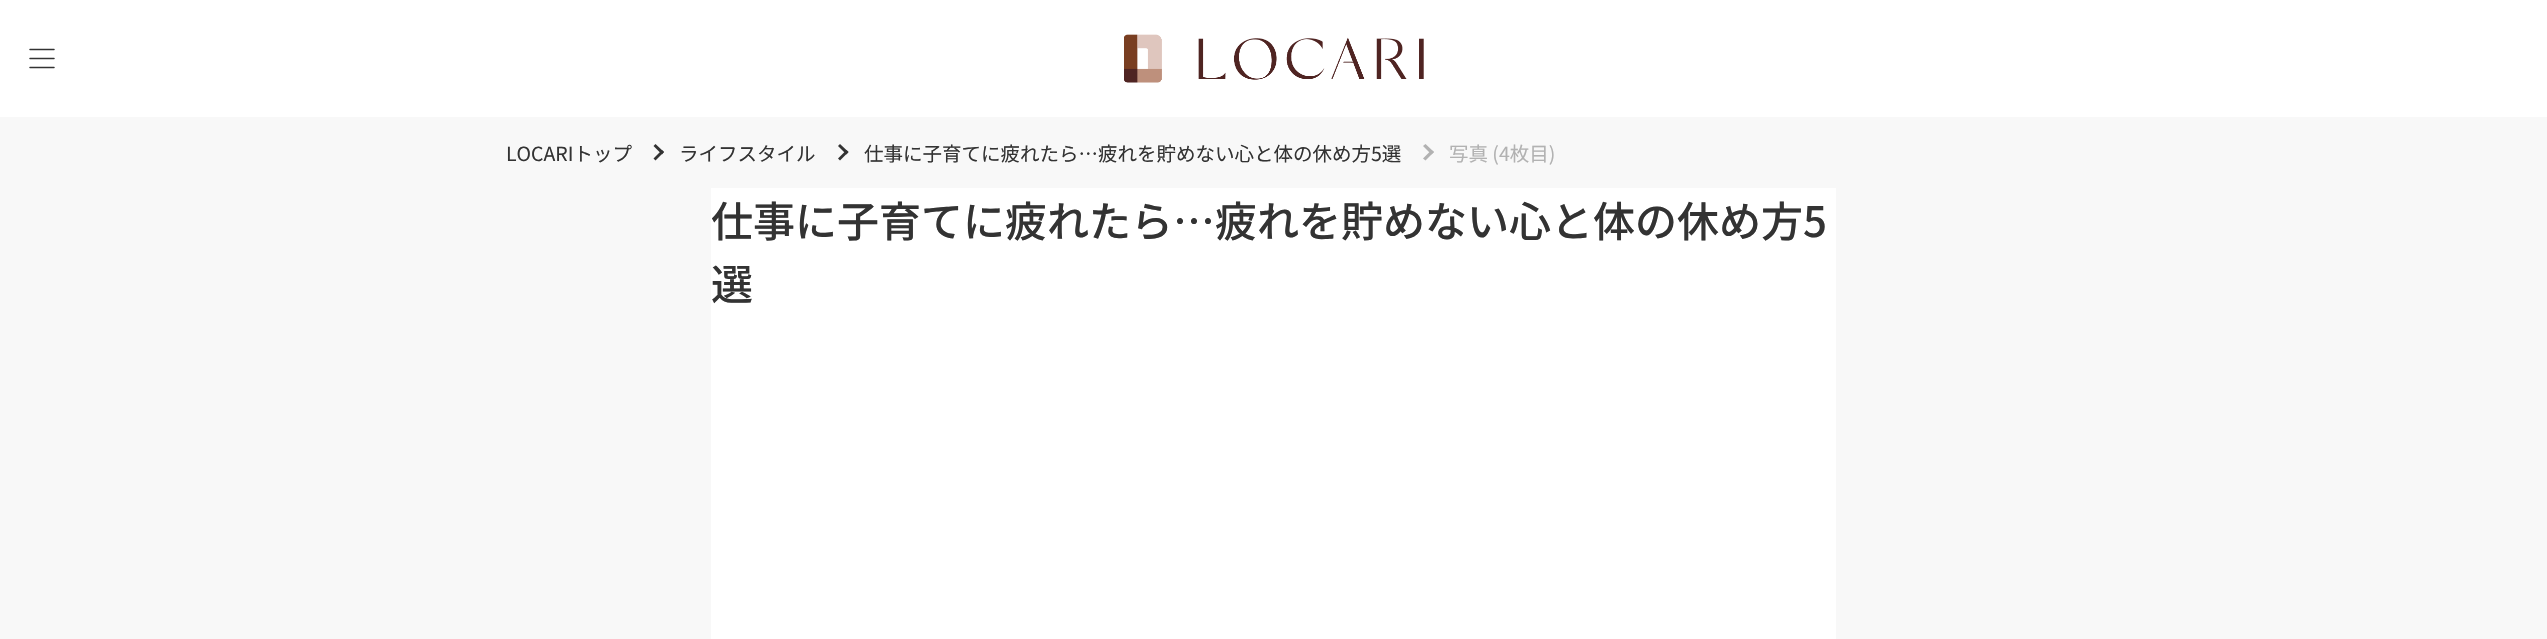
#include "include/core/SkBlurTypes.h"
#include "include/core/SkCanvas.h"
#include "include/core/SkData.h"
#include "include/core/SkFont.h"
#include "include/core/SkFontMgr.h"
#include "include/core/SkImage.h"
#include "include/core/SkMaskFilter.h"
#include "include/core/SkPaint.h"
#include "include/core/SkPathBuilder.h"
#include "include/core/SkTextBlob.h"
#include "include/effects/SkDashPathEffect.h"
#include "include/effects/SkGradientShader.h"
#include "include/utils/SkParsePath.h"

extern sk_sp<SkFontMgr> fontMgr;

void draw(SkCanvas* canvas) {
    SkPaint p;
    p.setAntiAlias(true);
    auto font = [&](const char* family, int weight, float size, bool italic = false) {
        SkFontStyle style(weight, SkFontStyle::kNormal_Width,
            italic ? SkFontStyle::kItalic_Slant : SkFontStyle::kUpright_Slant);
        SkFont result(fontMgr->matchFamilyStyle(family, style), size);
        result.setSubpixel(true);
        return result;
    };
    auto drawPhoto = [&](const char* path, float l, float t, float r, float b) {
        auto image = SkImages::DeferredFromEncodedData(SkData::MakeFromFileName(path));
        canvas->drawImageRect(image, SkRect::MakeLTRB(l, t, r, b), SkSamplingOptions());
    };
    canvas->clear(0xFFF8F8F8);
    p.setColor(0xFFFFFFFF);
    canvas->drawRect(SkRect::MakeLTRB(0, 0, 2547, 117), p);
    p.setStyle(SkPaint::kStroke_Style);
    p.setStrokeWidth(1.5f);
    p.setStrokeCap(SkPaint::kRound_Cap);
    p.setColor(0xFF333333);
    canvas->drawPath(SkPathBuilder().moveTo(30, 49.5f).lineTo(54, 49.5f).moveTo(30, 58.5f).lineTo(54, 58.5f).moveTo(30, 67.5f).lineTo(54, 67.5f).detach(), p);
    drawPhoto("media/1.png", 1124, 34, 1424, 83);
    auto font1 = font("Noto Sans JP", 400, 19.5f);
    p.setStyle(SkPaint::kFill_Style);
    canvas->drawString("LOCARIトップ", 506, 161, font1, p);
    canvas->drawPath(SkPathBuilder().moveTo(653.5f, 146).lineTo(655.5f, 144).lineTo(664, 152).lineTo(662, 154.5f).close().detach(), p);
    canvas->drawPath(SkPathBuilder().moveTo(653.5f, 158.5f).lineTo(662, 150).lineTo(664, 152).lineTo(655.5f, 160.5f).close().detach(), p);
    canvas->drawString("ライフスタイル", 679, 161, font1, p);
    canvas->drawPath(SkPathBuilder().moveTo(838, 146).lineTo(840, 144).lineTo(848.5f, 152).lineTo(846.5f, 154.5f).close().detach(), p);
    canvas->drawPath(SkPathBuilder().moveTo(838, 158.5f).lineTo(846.5f, 150).lineTo(848.5f, 152).lineTo(840, 160.5f).close().detach(), p);
    canvas->drawString("仕事に子育てに疲れたら…疲れを貯めない心と体の休め方5選", 864, 161, font1, p);
    p.setColor(0xFFB2B2B2);
    canvas->drawPath(SkPathBuilder().moveTo(1423, 146).lineTo(1425.5f, 144).lineTo(1434, 152).lineTo(1431.5f, 154.5f).close().detach(), p);
    canvas->drawPath(SkPathBuilder().moveTo(1423, 158.5f).lineTo(1431.5f, 150).lineTo(1434, 152).lineTo(1425.5f, 160.5f).close().detach(), p);
    canvas->drawString("写真 (4枚目)", 1449, 161, font1, p);
    p.setColor(0xFFFFFFFF);
    canvas->drawRect(SkRect::MakeLTRB(711, 188, 1836, 639), p);
    auto font2 = font("Noto Sans JP", 500, 42);
    p.setColor(0xFF333333);
    canvas->drawString("仕事に子育てに疲れたら…疲れを貯めない心と体の休め方5", 711, 237, font2, p);
    canvas->drawString("選", 711, 300, font2, p);
}
